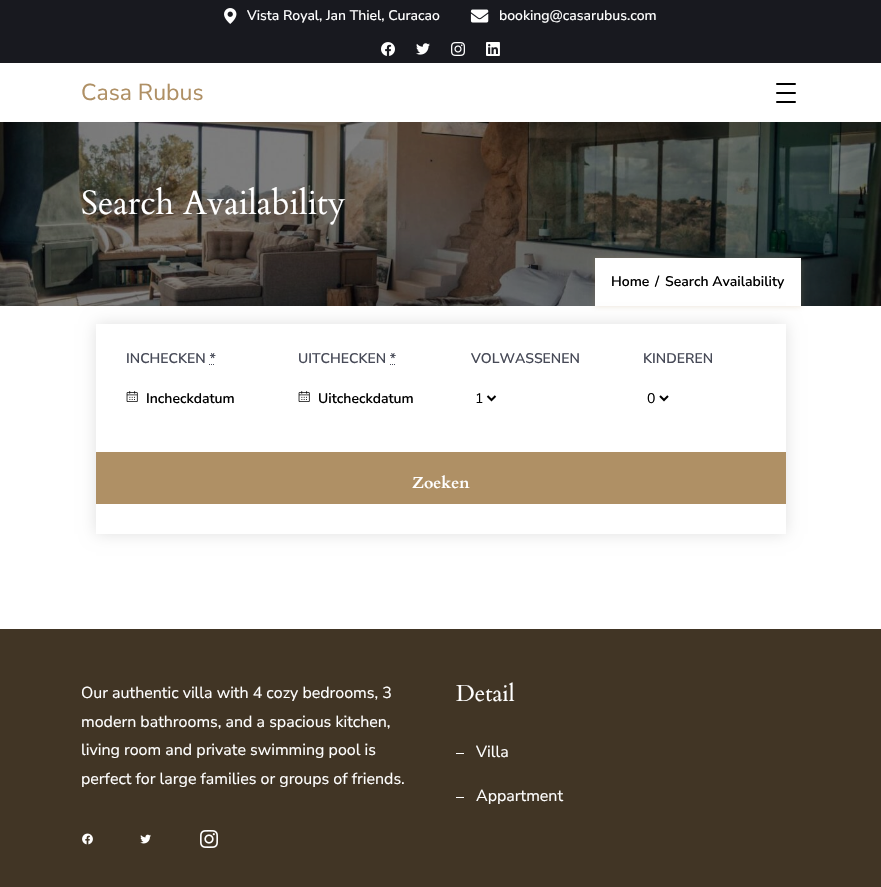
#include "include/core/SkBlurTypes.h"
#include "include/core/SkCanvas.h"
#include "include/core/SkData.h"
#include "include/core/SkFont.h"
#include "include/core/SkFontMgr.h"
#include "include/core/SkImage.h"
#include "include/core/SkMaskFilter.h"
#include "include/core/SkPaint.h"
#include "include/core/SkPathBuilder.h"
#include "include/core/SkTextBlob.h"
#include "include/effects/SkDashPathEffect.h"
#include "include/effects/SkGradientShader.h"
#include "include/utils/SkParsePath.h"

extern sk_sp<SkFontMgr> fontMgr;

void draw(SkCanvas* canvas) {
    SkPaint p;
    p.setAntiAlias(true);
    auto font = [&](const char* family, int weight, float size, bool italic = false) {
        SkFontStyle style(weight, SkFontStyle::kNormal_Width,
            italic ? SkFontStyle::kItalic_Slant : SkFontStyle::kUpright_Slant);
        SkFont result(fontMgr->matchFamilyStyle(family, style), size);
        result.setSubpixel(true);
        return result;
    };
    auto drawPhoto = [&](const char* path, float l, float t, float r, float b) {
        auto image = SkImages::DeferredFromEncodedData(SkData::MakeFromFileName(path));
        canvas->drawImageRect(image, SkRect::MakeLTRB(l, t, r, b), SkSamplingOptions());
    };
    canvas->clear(0xFFFFFFFF);
    p.setColor(0xFF18191F);
    canvas->drawRect(SkRect::MakeLTRB(0, 0, 881, 63), p);
    drawPhoto("media/1.png", 224, 8, 237, 24);
    auto font1 = font("Nunito Sans", 500, 14);
    p.setColor(0xFFFFFFFF);
    canvas->drawString("Vista Royal, Jan Thiel, Curacao", 247, 20, font1, p);
    drawPhoto("media/2.png", 470, 9, 489, 23);
    canvas->drawString("booking@casarubus.com", 499, 20, font1, p);
    drawPhoto("media/3.png", 381, 42, 395, 56);
    drawPhoto("media/4.png", 416, 43, 430, 55);
    drawPhoto("media/5.png", 451, 42, 465, 56);
    drawPhoto("media/6.png", 486, 42, 500, 56);
    auto font2 = font("Nunito Sans", 400, 23);
    p.setColor(0xFFAF9065);
    canvas->drawString("Casa Rubus", 81, 100, font2, p);
    p.setColor(0xFF000000);
    canvas->drawRoundRect(SkRect::MakeLTRB(776, 83, 796, 85), 1, 1, p);
    canvas->drawRoundRect(SkRect::MakeLTRB(776, 92, 796, 94), 1, 1, p);
    canvas->drawRoundRect(SkRect::MakeLTRB(776, 101, 796, 103), 1, 1, p);
    drawPhoto("media/7.png", 0, 122, 881, 306);
    auto font3 = font("Cardo", 400, 33.75f);
    p.setColor(0xFFFFFFFF);
    canvas->drawString("Search Availability", 81, 214, font3, p);
    p.setColor(0x33AF9065);
    p.setMaskFilter(SkMaskFilter::MakeBlur(kNormal_SkBlurStyle, 2.5f));
    canvas->drawRect(SkRect::MakeLTRB(594, 257, 802, 307), p);
    p.setMaskFilter(nullptr);
    p.setColor(0xFFFFFFFF);
    canvas->drawRect(SkRect::MakeLTRB(595, 258, 801, 306), p);
    auto font4 = font("Nunito Sans", 600, 14);
    p.setColor(0xFF000000);
    {
        const struct { const char* s; float x, y; } items[] = {
            {"Home", 611, 286},
            {"/", 655, 286},
            {"Search Availability", 665, 286},
        };
        for (auto [s, x, y] : items) {
            canvas->drawString(s, x, y, font4, p);
        }
    }
    canvas->save();
    canvas->clipPath(SkPathBuilder(SkPathFillType::kEvenOdd).moveTo(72, 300).lineTo(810, 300).lineTo(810, 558).lineTo(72, 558).close().moveTo(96, 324).lineTo(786, 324).lineTo(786, 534).lineTo(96, 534).close().detach(), true);
    p.setColor(0x1F000000);
    p.setMaskFilter(SkMaskFilter::MakeBlur(kNormal_SkBlurStyle, 7.5f));
    canvas->drawRect(SkRect::MakeLTRB(96, 324, 786, 534), p);
    p.setMaskFilter(nullptr);
    canvas->restore();
    p.setColor(0xFF474A57);
    canvas->drawString("INCHECKEN *", 126, 363, font4, p);
    p.setStyle(SkPaint::kStroke_Style);
    p.setStrokeWidth(1);
    canvas->drawPath(SkPathBuilder().moveTo(209, 364.5f).lineTo(210, 364.5f).moveTo(211, 364.5f).lineTo(212, 364.5f).moveTo(213, 364.5f).lineTo(214, 364.5f).moveTo(215, 364.5f).lineTo(215, 364.5f).detach(), p);
    drawPhoto("media/8.png", 126, 391, 138, 402);
    p.setStyle(SkPaint::kFill_Style);
    p.setColor(0xFF000000);
    canvas->drawString("Incheckdatum", 146, 403, font4, p);
    p.setColor(0xFF474A57);
    canvas->drawString("UITCHECKEN *", 298, 363, font4, p);
    p.setStyle(SkPaint::kStroke_Style);
    canvas->drawPath(SkPathBuilder().moveTo(390, 364.5f).lineTo(391, 364.5f).moveTo(392, 364.5f).lineTo(393, 364.5f).moveTo(394, 364.5f).lineTo(395, 364.5f).moveTo(396, 364.5f).lineTo(396, 364.5f).detach(), p);
    drawPhoto("media/8.png", 298, 391, 310, 402);
    p.setStyle(SkPaint::kFill_Style);
    p.setColor(0xFF000000);
    canvas->drawString("Uitcheckdatum", 318, 403, font4, p);
    p.setColor(0xFF474A57);
    canvas->drawString("VOLWASSENEN", 471, 363, font4, p);
    p.setStyle(SkPaint::kStroke_Style);
    p.setStrokeWidth(2);
    p.setColor(0xFF000000);
    canvas->drawPath(SkPathBuilder().moveTo(487.5f, 396).lineTo(491.5f, 400).lineTo(495.5f, 396).detach(), p);
    auto font5 = font("Nunito Sans", 400, 14);
    p.setStyle(SkPaint::kFill_Style);
    canvas->drawString("1", 475, 403, font5, p);
    p.setColor(0xFF474A57);
    canvas->drawString("KINDEREN", 643, 363, font4, p);
    p.setStyle(SkPaint::kStroke_Style);
    p.setColor(0xFF000000);
    canvas->drawPath(SkPathBuilder().moveTo(660, 396).lineTo(664, 400).lineTo(668, 396).detach(), p);
    p.setStyle(SkPaint::kFill_Style);
    canvas->drawString("0", 647, 403, font5, p);
    p.setColor(0xFFAF9065);
    canvas->drawRect(SkRect::MakeLTRB(96, 452, 786, 504), p);
    auto font6 = font("Cardo", 700, 16);
    p.setColor(0xFFFFFFFF);
    canvas->drawString("Zoeken", 412, 488, font6, p);
    p.setColor(0xFF413525);
    canvas->drawRect(SkRect::MakeLTRB(0, 629, 881, 887), p);
    auto font7 = font("Nunito Sans", 400, 16);
    p.setColor(0xFFFFFFFF);
    {
        const struct { const char* s; float x, y; } items[] = {
            {"Our authentic villa with 4 cozy bedrooms, 3", 81, 698},
            {"modern bathrooms, and a spacious kitchen,", 81, 727},
            {"living room and private swimming pool is", 81, 755},
            {"perfect for large families or groups of friends.", 81, 784},
        };
        for (auto [s, x, y] : items) {
            canvas->drawString(s, x, y, font7, p);
        }
    }
    drawPhoto("media/9.png", 82, 833, 93, 845);
    drawPhoto("media/10.png", 140, 834, 151, 844);
    drawPhoto("media/11.png", 200, 830, 218, 848);
    auto font8 = font("Cardo", 400, 23);
    canvas->drawString("Detail", 456, 701, font8, p);
    canvas->drawRect(SkRect::MakeLTRB(456, 753, 464, 754), p);
    canvas->drawString("Villa", 476, 757, font7, p);
    canvas->drawRect(SkRect::MakeLTRB(456, 797, 464, 798), p);
    canvas->drawString("Appartment", 476, 801, font7, p);
}
